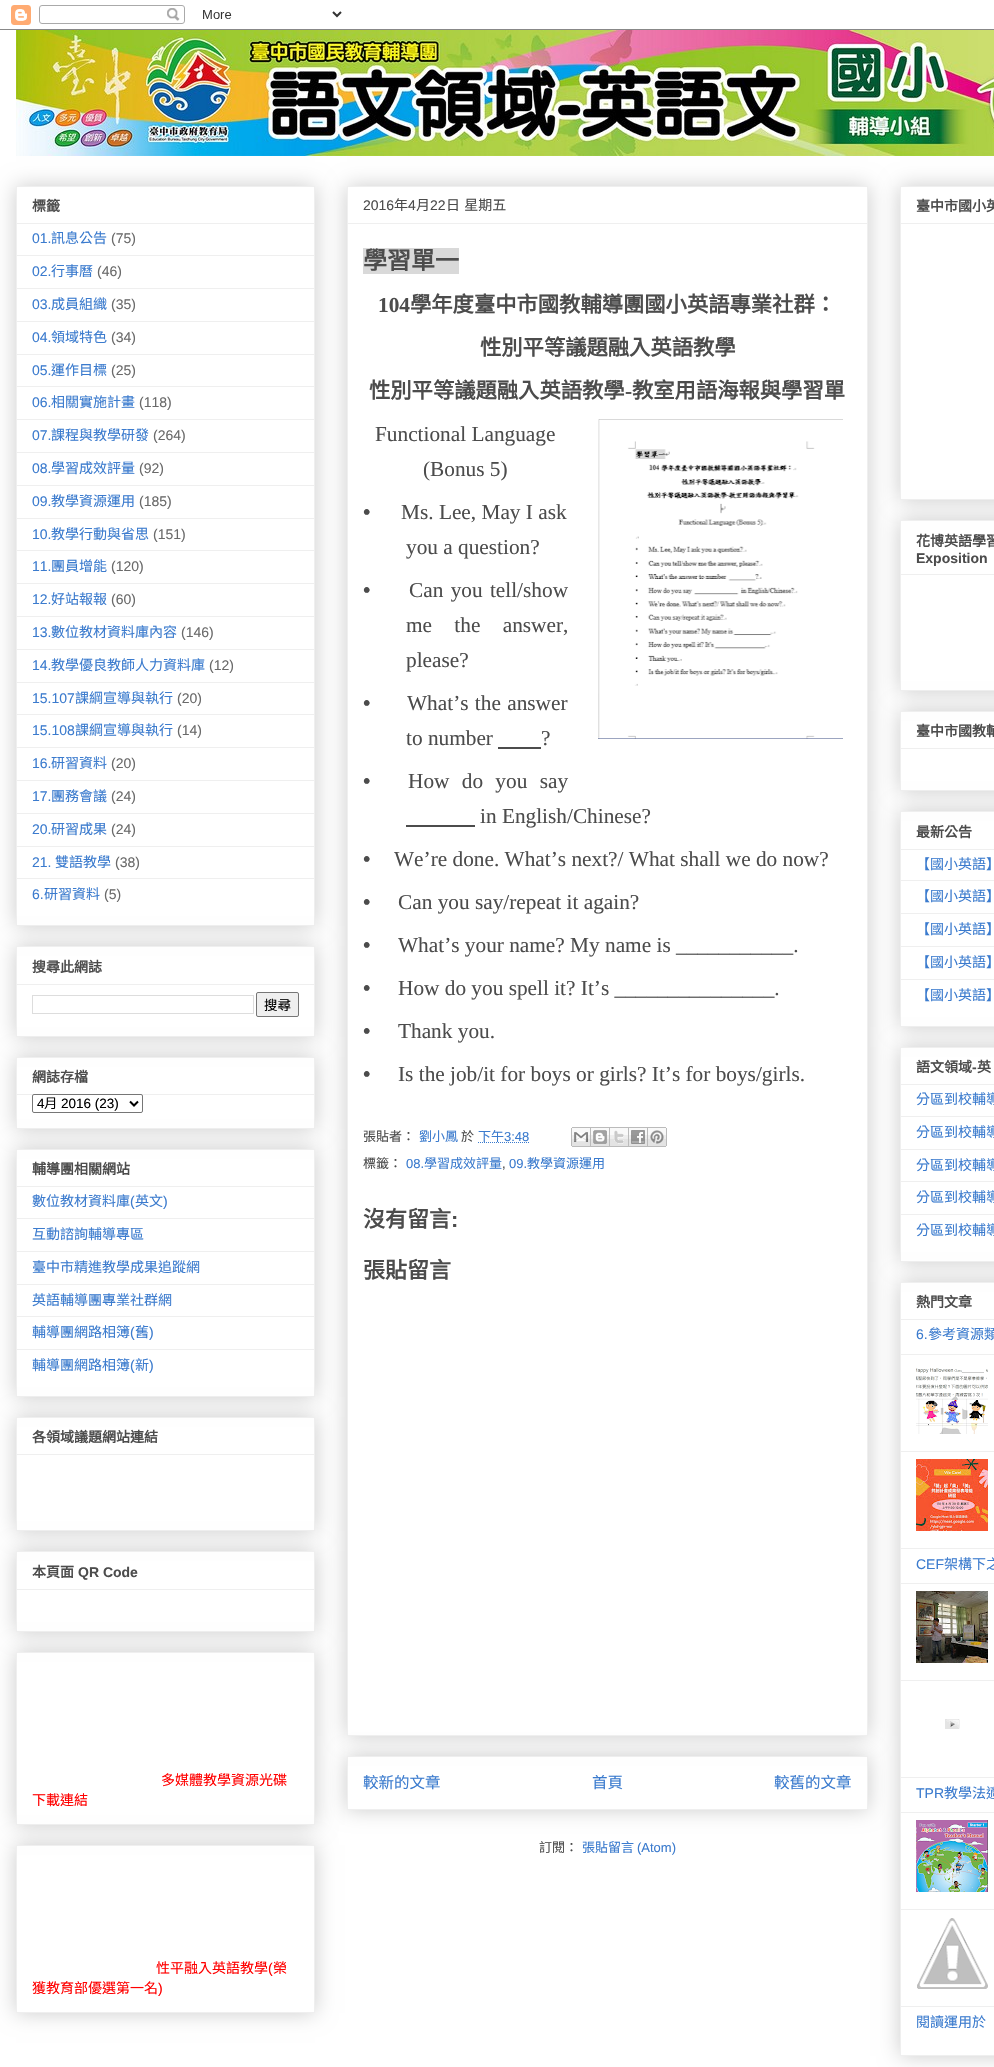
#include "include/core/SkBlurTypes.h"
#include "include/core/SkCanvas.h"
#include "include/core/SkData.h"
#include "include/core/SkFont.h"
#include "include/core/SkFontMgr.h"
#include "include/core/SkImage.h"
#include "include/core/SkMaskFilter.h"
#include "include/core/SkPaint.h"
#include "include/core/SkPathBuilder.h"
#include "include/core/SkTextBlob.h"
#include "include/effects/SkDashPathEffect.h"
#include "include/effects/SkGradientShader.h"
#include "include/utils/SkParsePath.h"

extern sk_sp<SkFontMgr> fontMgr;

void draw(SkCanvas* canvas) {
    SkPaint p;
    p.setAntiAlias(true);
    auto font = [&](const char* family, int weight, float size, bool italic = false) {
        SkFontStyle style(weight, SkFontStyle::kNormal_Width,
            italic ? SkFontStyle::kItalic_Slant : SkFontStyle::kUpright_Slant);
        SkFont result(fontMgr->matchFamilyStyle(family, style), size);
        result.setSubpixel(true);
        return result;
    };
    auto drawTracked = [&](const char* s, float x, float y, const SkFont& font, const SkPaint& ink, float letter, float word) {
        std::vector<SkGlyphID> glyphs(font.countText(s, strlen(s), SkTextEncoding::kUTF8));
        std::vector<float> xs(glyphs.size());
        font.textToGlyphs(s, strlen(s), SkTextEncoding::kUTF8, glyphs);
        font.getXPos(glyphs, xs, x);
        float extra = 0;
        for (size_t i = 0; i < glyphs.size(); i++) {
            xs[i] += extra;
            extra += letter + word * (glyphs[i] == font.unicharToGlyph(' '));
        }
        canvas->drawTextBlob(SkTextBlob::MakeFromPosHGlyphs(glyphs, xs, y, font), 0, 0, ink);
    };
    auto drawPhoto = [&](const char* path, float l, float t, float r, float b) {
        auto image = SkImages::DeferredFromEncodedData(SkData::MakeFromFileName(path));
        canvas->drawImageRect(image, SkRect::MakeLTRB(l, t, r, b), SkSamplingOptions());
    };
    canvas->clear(0xFFFFFFFF);
    drawPhoto("media/1.png", 0, 5, 994, 30);
    drawPhoto("media/2.png", 16, 30, 994, 156);
    canvas->save();
    canvas->clipPath(SkPathBuilder(SkPathFillType::kEvenOdd).moveTo(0, 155).lineTo(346, 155).lineTo(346, 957).lineTo(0, 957).close().moveTo(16, 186).lineTo(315, 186).lineTo(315, 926).lineTo(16, 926).close().detach(), true);
    p.setColor(0x33000000);
    p.setMaskFilter(SkMaskFilter::MakeBlur(kNormal_SkBlurStyle, 10));
    canvas->drawRect(SkRect::MakeLTRB(16, 186, 315, 926), p);
    p.setMaskFilter(nullptr);
    canvas->restore();
    p.setStyle(SkPaint::kStroke_Style);
    p.setStrokeWidth(1);
    p.setColor(0xFFEFEFEF);
    canvas->drawRect(SkRect::MakeLTRB(16.5f, 186.5f, 314.5f, 925.5f), p);
    auto font1 = font("Noto Sans CJK TC", 700, 14);
    p.setStyle(SkPaint::kFill_Style);
    p.setColor(0xFF4C4C4C);
    canvas->drawString("標籤", 32, 211, font1, p);
    p.setColor(0xFFEFEFEF);
    canvas->drawRect(SkRect::MakeLTRB(17, 223, 314, 224), p);
    auto font2 = font("Liberation Sans", 400, 14);
    p.setColor(0xFF3B7BCE);
    canvas->drawString("01.", 32, 243, font2, p);
    auto font3 = font("Noto Sans CJK TC", 400, 14);
    canvas->drawString("訊息公告", 51, 243, font3, p);
    p.setColor(0xFF6A6A6A);
    canvas->drawString("(75)", 111, 243, font2, p);
    p.setColor(0xFFEFEFEF);
    canvas->drawRect(SkRect::MakeLTRB(17, 255, 314, 256), p);
    p.setColor(0xFF3B7BCE);
    canvas->drawString("02.", 32, 276, font2, p);
    canvas->drawString("行事曆", 51, 276, font3, p);
    p.setColor(0xFF6A6A6A);
    canvas->drawString("(46)", 97, 276, font2, p);
    p.setColor(0xFFEFEFEF);
    canvas->drawRect(SkRect::MakeLTRB(17, 288, 314, 289), p);
    p.setColor(0xFF3B7BCE);
    canvas->drawString("03.", 32, 309, font2, p);
    canvas->drawString("成員組織", 51, 309, font3, p);
    p.setColor(0xFF6A6A6A);
    canvas->drawString("(35)", 111, 309, font2, p);
    p.setColor(0xFFEFEFEF);
    canvas->drawRect(SkRect::MakeLTRB(17, 321, 314, 322), p);
    p.setColor(0xFF3B7BCE);
    canvas->drawString("04.", 32, 342, font2, p);
    canvas->drawString("領域特色", 51, 342, font3, p);
    p.setColor(0xFF6A6A6A);
    canvas->drawString("(34)", 111, 342, font2, p);
    p.setColor(0xFFEFEFEF);
    canvas->drawRect(SkRect::MakeLTRB(17, 354, 314, 355), p);
    p.setColor(0xFF3B7BCE);
    canvas->drawString("05.", 32, 375, font2, p);
    canvas->drawString("運作目標", 51, 375, font3, p);
    p.setColor(0xFF6A6A6A);
    canvas->drawString("(25)", 111, 375, font2, p);
    p.setColor(0xFFEFEFEF);
    canvas->drawRect(SkRect::MakeLTRB(17, 386, 314, 387), p);
    p.setColor(0xFF3B7BCE);
    canvas->drawString("06.", 32, 407, font2, p);
    canvas->drawString("相關實施計畫", 51, 407, font3, p);
    p.setColor(0xFF6A6A6A);
    canvas->drawString("(118)", 139, 407, font2, p);
    p.setColor(0xFFEFEFEF);
    canvas->drawRect(SkRect::MakeLTRB(17, 419, 314, 420), p);
    p.setColor(0xFF3B7BCE);
    canvas->drawString("07.", 32, 440, font2, p);
    canvas->drawString("課程與教學研發", 51, 440, font3, p);
    p.setColor(0xFF6A6A6A);
    canvas->drawString("(264)", 153, 440, font2, p);
    p.setColor(0xFFEFEFEF);
    canvas->drawRect(SkRect::MakeLTRB(17, 452, 314, 453), p);
    p.setColor(0xFF3B7BCE);
    canvas->drawString("08.", 32, 473, font2, p);
    canvas->drawString("學習成效評量", 51, 473, font3, p);
    p.setColor(0xFF6A6A6A);
    canvas->drawString("(92)", 139, 473, font2, p);
    p.setColor(0xFFEFEFEF);
    canvas->drawRect(SkRect::MakeLTRB(17, 485, 314, 486), p);
    p.setColor(0xFF3B7BCE);
    canvas->drawString("09.", 32, 506, font2, p);
    canvas->drawString("教學資源運用", 51, 506, font3, p);
    p.setColor(0xFF6A6A6A);
    canvas->drawString("(185)", 139, 506, font2, p);
    p.setColor(0xFFEFEFEF);
    canvas->drawRect(SkRect::MakeLTRB(17, 518, 314, 519), p);
    p.setColor(0xFF3B7BCE);
    canvas->drawString("10.", 32, 539, font2, p);
    canvas->drawString("教學行動與省思", 51, 539, font3, p);
    p.setColor(0xFF6A6A6A);
    canvas->drawString("(151)", 153, 539, font2, p);
    p.setColor(0xFFEFEFEF);
    canvas->drawRect(SkRect::MakeLTRB(17, 550, 314, 551), p);
    p.setColor(0xFF3B7BCE);
    canvas->drawString("11.", 32, 571, font2, p);
    canvas->drawString("團員增能", 51, 571, font3, p);
    p.setColor(0xFF6A6A6A);
    canvas->drawString("(120)", 111, 571, font2, p);
    p.setColor(0xFFEFEFEF);
    canvas->drawRect(SkRect::MakeLTRB(17, 583, 314, 584), p);
    p.setColor(0xFF3B7BCE);
    canvas->drawString("12.", 32, 604, font2, p);
    canvas->drawString("好站報報", 51, 604, font3, p);
    p.setColor(0xFF6A6A6A);
    canvas->drawString("(60)", 111, 604, font2, p);
    p.setColor(0xFFEFEFEF);
    canvas->drawRect(SkRect::MakeLTRB(17, 616, 314, 617), p);
    p.setColor(0xFF3B7BCE);
    canvas->drawString("13.", 32, 637, font2, p);
    canvas->drawString("數位教材資料庫內容", 51, 637, font3, p);
    p.setColor(0xFF6A6A6A);
    canvas->drawString("(146)", 181, 637, font2, p);
    p.setColor(0xFFEFEFEF);
    canvas->drawRect(SkRect::MakeLTRB(17, 649, 314, 650), p);
    p.setColor(0xFF3B7BCE);
    canvas->drawString("14.", 32, 670, font2, p);
    canvas->drawString("教學優良教師人力資料庫", 51, 670, font3, p);
    p.setColor(0xFF6A6A6A);
    canvas->drawString("(12)", 209, 670, font2, p);
    p.setColor(0xFFEFEFEF);
    canvas->drawRect(SkRect::MakeLTRB(17, 682, 314, 683), p);
    p.setColor(0xFF3B7BCE);
    canvas->drawString("15.107", 32, 703, font2, p);
    canvas->drawString("課綱宣導與執行", 75, 703, font3, p);
    p.setColor(0xFF6A6A6A);
    canvas->drawString("(20)", 177, 703, font2, p);
    p.setColor(0xFFEFEFEF);
    canvas->drawRect(SkRect::MakeLTRB(17, 714, 314, 715), p);
    p.setColor(0xFF3B7BCE);
    canvas->drawString("15.108", 32, 735, font2, p);
    canvas->drawString("課綱宣導與執行", 75, 735, font3, p);
    p.setColor(0xFF6A6A6A);
    canvas->drawString("(14)", 177, 735, font2, p);
    p.setColor(0xFFEFEFEF);
    canvas->drawRect(SkRect::MakeLTRB(17, 747, 314, 748), p);
    p.setColor(0xFF3B7BCE);
    canvas->drawString("16.", 32, 768, font2, p);
    canvas->drawString("研習資料", 51, 768, font3, p);
    p.setColor(0xFF6A6A6A);
    canvas->drawString("(20)", 111, 768, font2, p);
    p.setColor(0xFFEFEFEF);
    canvas->drawRect(SkRect::MakeLTRB(17, 780, 314, 781), p);
    p.setColor(0xFF3B7BCE);
    canvas->drawString("17.", 32, 801, font2, p);
    canvas->drawString("團務會議", 51, 801, font3, p);
    p.setColor(0xFF6A6A6A);
    canvas->drawString("(24)", 111, 801, font2, p);
    p.setColor(0xFFEFEFEF);
    canvas->drawRect(SkRect::MakeLTRB(17, 813, 314, 814), p);
    p.setColor(0xFF3B7BCE);
    canvas->drawString("20.", 32, 834, font2, p);
    canvas->drawString("研習成果", 51, 834, font3, p);
    p.setColor(0xFF6A6A6A);
    canvas->drawString("(24)", 111, 834, font2, p);
    p.setColor(0xFFEFEFEF);
    canvas->drawRect(SkRect::MakeLTRB(17, 846, 314, 847), p);
    p.setColor(0xFF3B7BCE);
    canvas->drawString("21.", 32, 867, font2, p);
    canvas->drawString("雙語教學", 55, 867, font3, p);
    p.setColor(0xFF6A6A6A);
    canvas->drawString("(38)", 115, 867, font2, p);
    p.setColor(0xFFEFEFEF);
    canvas->drawRect(SkRect::MakeLTRB(17, 878, 314, 879), p);
    p.setColor(0xFF3B7BCE);
    canvas->drawString("6.", 32, 899, font2, p);
    canvas->drawString("研習資料", 44, 899, font3, p);
    p.setColor(0xFF6A6A6A);
    canvas->drawString("(5)", 104, 899, font2, p);
    canvas->save();
    canvas->clipPath(SkPathBuilder(SkPathFillType::kEvenOdd).moveTo(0, 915).lineTo(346, 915).lineTo(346, 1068).lineTo(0, 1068).close().moveTo(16, 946).lineTo(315, 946).lineTo(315, 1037).lineTo(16, 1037).close().detach(), true);
    p.setColor(0x33000000);
    p.setMaskFilter(SkMaskFilter::MakeBlur(kNormal_SkBlurStyle, 10));
    canvas->drawRect(SkRect::MakeLTRB(16, 946, 315, 1037), p);
    p.setMaskFilter(nullptr);
    canvas->restore();
    p.setStyle(SkPaint::kStroke_Style);
    p.setColor(0xFFEFEFEF);
    canvas->drawRect(SkRect::MakeLTRB(16.5f, 946.5f, 314.5f, 1036.5f), p);
    p.setStyle(SkPaint::kFill_Style);
    p.setColor(0xFF4C4C4C);
    canvas->drawString("搜尋此網誌", 32, 972, font1, p);
    p.setColor(0xFFEFEFEF);
    canvas->drawRect(SkRect::MakeLTRB(17, 984, 314, 985), p);
    p.setStyle(SkPaint::kStroke_Style);
    p.setColor(0xFFDDDDDD);
    canvas->drawRect(SkRect::MakeLTRB(32.5f, 995.5f, 253.5f, 1013.5f), p);
    p.setStyle(SkPaint::kFill_Style);
    p.setColor(0xFFEFEFEF);
    canvas->drawRoundRect(SkRect::MakeLTRB(256.5f, 992.5f, 298.5f, 1016.5f), 1.5f, 1.5f, p);
    p.setStyle(SkPaint::kStroke_Style);
    p.setColor(0xFF767676);
    canvas->drawRoundRect(SkRect::MakeLTRB(256.5f, 992.5f, 298.5f, 1016.5f), 1.5f, 1.5f, p);
    auto font4 = font("Noto Sans CJK TC", 400, 13.5f);
    p.setStyle(SkPaint::kFill_Style);
    p.setColor(0xFF000000);
    canvas->drawString("搜尋", 264, 1010, font4, p);
    canvas->save();
    canvas->clipPath(SkPathBuilder(SkPathFillType::kEvenOdd).moveTo(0, 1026).lineTo(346, 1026).lineTo(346, 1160).lineTo(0, 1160).close().moveTo(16, 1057).lineTo(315, 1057).lineTo(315, 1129).lineTo(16, 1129).close().detach(), true);
    p.setColor(0x33000000);
    p.setMaskFilter(SkMaskFilter::MakeBlur(kNormal_SkBlurStyle, 10));
    canvas->drawRect(SkRect::MakeLTRB(16, 1057, 315, 1129), p);
    p.setMaskFilter(nullptr);
    canvas->restore();
    p.setStyle(SkPaint::kStroke_Style);
    p.setColor(0xFFEFEFEF);
    canvas->drawRect(SkRect::MakeLTRB(16.5f, 1057.5f, 314.5f, 1128.5f), p);
    p.setStyle(SkPaint::kFill_Style);
    p.setColor(0xFF4C4C4C);
    canvas->drawString("網誌存檔", 32, 1082, font1, p);
    p.setColor(0xFFEFEFEF);
    canvas->drawRect(SkRect::MakeLTRB(17, 1094, 314, 1095), p);
    p.setColor(0xFFFFFFFF);
    canvas->drawRoundRect(SkRect::MakeLTRB(32.5f, 1094.5f, 142.5f, 1112.5f), 1.5f, 1.5f, p);
    p.setStyle(SkPaint::kStroke_Style);
    p.setColor(0xFF767676);
    canvas->drawRoundRect(SkRect::MakeLTRB(32.5f, 1094.5f, 142.5f, 1112.5f), 1.5f, 1.5f, p);
    p.setStrokeWidth(2);
    p.setColor(0xFF000000);
    canvas->drawPath(SkPathBuilder().moveTo(130, 1101.5f).lineTo(134, 1105.5f).lineTo(138, 1101.5f).detach(), p);
    auto font5 = font("Liberation Sans", 400, 13.5f);
    p.setStyle(SkPaint::kFill_Style);
    canvas->drawString("4", 37, 1108, font5, p);
    canvas->drawString("月", 44, 1108, font4, p);
    canvas->drawString("2016 (23)", 61, 1108, font5, p);
    canvas->save();
    canvas->clipPath(SkPathBuilder(SkPathFillType::kEvenOdd).moveTo(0, 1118).lineTo(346, 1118).lineTo(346, 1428).lineTo(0, 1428).close().moveTo(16, 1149).lineTo(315, 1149).lineTo(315, 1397).lineTo(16, 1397).close().detach(), true);
    p.setColor(0x33000000);
    p.setMaskFilter(SkMaskFilter::MakeBlur(kNormal_SkBlurStyle, 10));
    canvas->drawRect(SkRect::MakeLTRB(16, 1149, 315, 1397), p);
    p.setMaskFilter(nullptr);
    canvas->restore();
    p.setStyle(SkPaint::kStroke_Style);
    p.setStrokeWidth(1);
    p.setColor(0xFFEFEFEF);
    canvas->drawRect(SkRect::MakeLTRB(16.5f, 1149.5f, 314.5f, 1396.5f), p);
    p.setStyle(SkPaint::kFill_Style);
    p.setColor(0xFF4C4C4C);
    canvas->drawString("輔導團相關網站", 32, 1174, font1, p);
    p.setColor(0xFFEFEFEF);
    canvas->drawRect(SkRect::MakeLTRB(17, 1186, 314, 1187), p);
    p.setColor(0xFF3B7BCE);
    canvas->drawString("數位教材資料庫", 32, 1206, font3, p);
    canvas->drawString("(", 130, 1206, font2, p);
    canvas->drawString("英文", 135, 1206, font3, p);
    canvas->drawString(")", 163, 1206, font2, p);
    p.setColor(0xFFEFEFEF);
    canvas->drawRect(SkRect::MakeLTRB(17, 1218, 314, 1219), p);
    p.setColor(0xFF3B7BCE);
    canvas->drawString("互動諮詢輔導專區", 32, 1239, font3, p);
    p.setColor(0xFFEFEFEF);
    canvas->drawRect(SkRect::MakeLTRB(17, 1251, 314, 1252), p);
    p.setColor(0xFF3B7BCE);
    canvas->drawString("臺中市精進教學成果追蹤網", 32, 1272, font3, p);
    p.setColor(0xFFEFEFEF);
    canvas->drawRect(SkRect::MakeLTRB(17, 1284, 314, 1285), p);
    p.setColor(0xFF3B7BCE);
    canvas->drawString("英語輔導團專業社群網", 32, 1305, font3, p);
    p.setColor(0xFFEFEFEF);
    canvas->drawRect(SkRect::MakeLTRB(17, 1316, 314, 1317), p);
    p.setColor(0xFF3B7BCE);
    canvas->drawString("輔導團網路相簿", 32, 1337, font3, p);
    canvas->drawString("(", 130, 1337, font2, p);
    canvas->drawString("舊", 135, 1337, font3, p);
    canvas->drawString(")", 149, 1337, font2, p);
    p.setColor(0xFFEFEFEF);
    canvas->drawRect(SkRect::MakeLTRB(17, 1349, 314, 1350), p);
    p.setColor(0xFF3B7BCE);
    canvas->drawString("輔導團網路相簿", 32, 1370, font3, p);
    canvas->drawString("(", 130, 1370, font2, p);
    canvas->drawString("新", 135, 1370, font3, p);
    canvas->drawString(")", 149, 1370, font2, p);
    canvas->save();
    canvas->clipPath(SkPathBuilder(SkPathFillType::kEvenOdd).moveTo(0, 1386).lineTo(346, 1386).lineTo(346, 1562).lineTo(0, 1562).close().moveTo(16, 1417).lineTo(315, 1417).lineTo(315, 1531).lineTo(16, 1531).close().detach(), true);
    p.setColor(0x33000000);
    p.setMaskFilter(SkMaskFilter::MakeBlur(kNormal_SkBlurStyle, 10));
    canvas->drawRect(SkRect::MakeLTRB(16, 1417, 315, 1531), p);
    p.setMaskFilter(nullptr);
    canvas->restore();
    p.setStyle(SkPaint::kStroke_Style);
    p.setColor(0xFFEFEFEF);
    canvas->drawRect(SkRect::MakeLTRB(16.5f, 1417.5f, 314.5f, 1530.5f), p);
    p.setStyle(SkPaint::kFill_Style);
    p.setColor(0xFF4C4C4C);
    canvas->drawString("各領域議題網站連結", 32, 1442, font1, p);
    p.setColor(0xFFEFEFEF);
    canvas->drawRect(SkRect::MakeLTRB(17, 1454, 314, 1455), p);
    canvas->save();
    canvas->clipPath(SkPathBuilder(SkPathFillType::kEvenOdd).moveTo(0, 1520).lineTo(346, 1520).lineTo(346, 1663).lineTo(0, 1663).close().moveTo(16, 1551).lineTo(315, 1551).lineTo(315, 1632).lineTo(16, 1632).close().detach(), true);
    p.setColor(0x33000000);
    p.setMaskFilter(SkMaskFilter::MakeBlur(kNormal_SkBlurStyle, 10));
    canvas->drawRect(SkRect::MakeLTRB(16, 1551, 315, 1632), p);
    p.setMaskFilter(nullptr);
    canvas->restore();
    p.setStyle(SkPaint::kStroke_Style);
    p.setColor(0xFFEFEFEF);
    canvas->drawRect(SkRect::MakeLTRB(16.5f, 1551.5f, 314.5f, 1631.5f), p);
    p.setStyle(SkPaint::kFill_Style);
    p.setColor(0xFF4C4C4C);
    canvas->drawString("本頁面", 32, 1577, font1, p);
    auto font6 = font("Liberation Sans", 700, 14);
    canvas->drawString("QR Code", 78, 1577, font6, p);
    p.setColor(0xFFEFEFEF);
    canvas->drawRect(SkRect::MakeLTRB(17, 1589, 314, 1590), p);
    canvas->save();
    canvas->clipPath(SkPathBuilder(SkPathFillType::kEvenOdd).moveTo(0, 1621).lineTo(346, 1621).lineTo(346, 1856).lineTo(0, 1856).close().moveTo(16, 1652).lineTo(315, 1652).lineTo(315, 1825).lineTo(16, 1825).close().detach(), true);
    p.setColor(0x33000000);
    p.setMaskFilter(SkMaskFilter::MakeBlur(kNormal_SkBlurStyle, 10));
    canvas->drawRect(SkRect::MakeLTRB(16, 1652, 315, 1825), p);
    p.setMaskFilter(nullptr);
    canvas->restore();
    p.setStyle(SkPaint::kStroke_Style);
    p.setColor(0xFFEFEFEF);
    canvas->drawRect(SkRect::MakeLTRB(16.5f, 1652.5f, 314.5f, 1824.5f), p);
    p.setStyle(SkPaint::kFill_Style);
    p.setColor(0xFFFF0000);
    canvas->drawString("多媒體教學資源光碟", 161, 1785, font3, p);
    canvas->drawString("下載連結", 32, 1805, font3, p);
    canvas->save();
    canvas->clipPath(SkPathBuilder(SkPathFillType::kEvenOdd).moveTo(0, 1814).lineTo(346, 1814).lineTo(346, 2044).lineTo(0, 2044).close().moveTo(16, 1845).lineTo(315, 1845).lineTo(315, 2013).lineTo(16, 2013).close().detach(), true);
    p.setColor(0x33000000);
    p.setMaskFilter(SkMaskFilter::MakeBlur(kNormal_SkBlurStyle, 10));
    canvas->drawRect(SkRect::MakeLTRB(16, 1845, 315, 2013), p);
    p.setMaskFilter(nullptr);
    canvas->restore();
    p.setStyle(SkPaint::kStroke_Style);
    p.setColor(0xFFEFEFEF);
    canvas->drawRect(SkRect::MakeLTRB(16.5f, 1845.5f, 314.5f, 2012.5f), p);
    p.setStyle(SkPaint::kFill_Style);
    p.setColor(0xFFFF0000);
    canvas->drawString("性平融入英語教學", 156, 1973, font3, p);
    canvas->drawString("(", 268, 1973, font2, p);
    canvas->drawString("榮", 273, 1973, font3, p);
    canvas->drawString("獲教育部優選第一名", 32, 1993, font3, p);
    canvas->drawString(")", 158, 1993, font2, p);
    canvas->save();
    canvas->clipPath(SkPathBuilder(SkPathFillType::kEvenOdd).moveTo(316, 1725).lineTo(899, 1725).lineTo(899, 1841).lineTo(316, 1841).close().moveTo(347, 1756).lineTo(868, 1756).lineTo(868, 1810).lineTo(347, 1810).close().detach(), true);
    p.setColor(0x33000000);
    p.setMaskFilter(SkMaskFilter::MakeBlur(kNormal_SkBlurStyle, 10));
    canvas->drawRect(SkRect::MakeLTRB(347, 1756, 868, 1810), p);
    p.setMaskFilter(nullptr);
    canvas->restore();
    p.setStyle(SkPaint::kStroke_Style);
    p.setColor(0xFFEFEFEF);
    canvas->drawRect(SkRect::MakeLTRB(347.5f, 1756.5f, 867.5f, 1809.5f), p);
    canvas->save();
    canvas->clipPath(SkPathBuilder(SkPathFillType::kEvenOdd).moveTo(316, 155).lineTo(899, 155).lineTo(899, 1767).lineTo(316, 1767).close().moveTo(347, 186).lineTo(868, 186).lineTo(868, 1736).lineTo(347, 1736).close().detach(), true);
    p.setStyle(SkPaint::kFill_Style);
    p.setColor(0x33000000);
    p.setMaskFilter(SkMaskFilter::MakeBlur(kNormal_SkBlurStyle, 10));
    canvas->drawRect(SkRect::MakeLTRB(347, 186, 868, 1736), p);
    p.setMaskFilter(nullptr);
    canvas->restore();
    p.setStyle(SkPaint::kStroke_Style);
    p.setColor(0xFFEFEFEF);
    canvas->drawRect(SkRect::MakeLTRB(347.5f, 186.5f, 867.5f, 1735.5f), p);
    p.setStyle(SkPaint::kFill_Style);
    p.setColor(0xFF4C4C4C);
    canvas->drawString("2016", 363, 210, font2, p);
    canvas->drawString("年", 394, 210, font3, p);
    canvas->drawString("4", 408, 210, font2, p);
    canvas->drawString("月", 416, 210, font3, p);
    canvas->drawString("22", 430, 210, font2, p);
    drawTracked("日 星期五", 446, 210, font3, p, 0, 1);
    p.setColor(0xFFEFEFEF);
    canvas->drawRect(SkRect::MakeLTRB(348, 223, 867, 224), p);
    p.setColor(0xFFD9D9D9);
    canvas->drawRect(SkRect::MakeLTRB(363, 248, 459, 274), p);
    auto font7 = font("Noto Sans CJK TC", 700, 24);
    p.setColor(0xFF4C4C4C);
    canvas->drawString("學習單一", 363, 269, font7, p);
    auto font8 = font("Liberation Serif", 700, 21.3f);
    canvas->drawString("104", 378, 312, font8, p);
    auto font9 = font("Noto Sans CJK TC", 700, 21.3f);
    {
        const struct { const char* s; float x, y; } items[] = {
            {"學年度臺中市國教輔導團國小英語專業社群：", 410, 312},
            {"性別平等議題融入英語教學", 480, 355},
            {"性別平等議題融入英語教學", 369, 398},
        };
        for (auto [s, x, y] : items) {
            canvas->drawString(s, x, y, font9, p);
        }
    }
    canvas->drawString("-", 625, 398, font8, p);
    canvas->drawString("教室用語海報與學習單", 632, 398, font9, p);
    drawPhoto("media/3.png", 598, 419, 843, 739);
    auto font10 = font("Liberation Serif", 400, 21.3f);
    canvas->drawString("Functional Language", 375, 441, font10, p);
    canvas->drawString("(Bonus 5)", 423, 476, font10, p);
    auto font11 = font("Liberation Sans", 400, 21.3f);
    canvas->drawString("•", 363, 519, font11, p);
    canvas->drawString("Ms. Lee, May I ask", 401, 519, font10, p);
    canvas->drawString("you a question?", 406, 554, font10, p);
    canvas->drawString("•", 363, 597, font11, p);
    drawTracked("Can you tell/show", 409, 597, font10, p, 0, 2);
    drawTracked("me the answer,", 406, 632, font10, p, 0, 17);
    canvas->drawString("please?", 406, 667, font10, p);
    canvas->drawString("•", 363, 710, font11, p);
    drawTracked("What’s the answer", 407, 710, font10, p, 0, 1);
    canvas->drawString("to number", 406, 745, font10, p);
    canvas->drawString("?", 541, 745, font10, p);
    canvas->drawRect(SkRect::MakeLTRB(498, 747, 541, 749), p);
    canvas->drawString("•", 363, 788, font11, p);
    drawTracked("How do you say", 408, 788, font10, p, 0, 7);
    canvas->drawString("in English/Chinese?", 480, 823, font10, p);
    canvas->drawRect(SkRect::MakeLTRB(406, 825, 475, 827), p);
    canvas->drawString("•", 363, 866, font11, p);
    canvas->drawString("We’re done. What’s next?/ What shall we do now?", 394, 866, font10, p);
    canvas->drawString("•", 363, 909, font11, p);
    canvas->drawString("Can you say/repeat it again?", 398, 909, font10, p);
    canvas->drawString("•", 363, 952, font11, p);
    canvas->drawString("What’s your name? My name is ___________.", 398, 952, font10, p);
    canvas->drawString("•", 363, 995, font11, p);
    canvas->drawString("How do you spell it? It’s _______________.", 398, 995, font10, p);
    canvas->drawString("•", 363, 1038, font11, p);
    canvas->drawString("Thank you.", 398, 1038, font10, p);
    canvas->drawString("•", 363, 1081, font11, p);
    canvas->drawString("Is the job/it for boys or girls? It’s for boys/girls.", 398, 1081, font10, p);
    auto font12 = font("Noto Sans CJK TC", 400, 13);
    canvas->drawString("張貼者：", 363, 1141, font12, p);
    p.setColor(0xFF3B7BCE);
    canvas->drawString("劉小鳳", 419, 1141, font12, p);
    p.setColor(0xFF4C4C4C);
    canvas->drawString("於", 461, 1141, font12, p);
    p.setStyle(SkPaint::kStroke_Style);
    p.setColor(0xFF3B7BCE);
    p.setPathEffect(SkDashPathEffect::Make({{1, 1}}, 0));
    canvas->drawPath(SkPathBuilder().moveTo(478, 1142.5f).lineTo(529, 1142.5f).detach(), p);
    p.setPathEffect(nullptr);
    p.setStyle(SkPaint::kFill_Style);
    canvas->drawString("下午", 478, 1141, font12, p);
    auto font13 = font("Liberation Sans", 400, 13);
    canvas->drawString("3:48", 504, 1141, font13, p);
    drawPhoto("media/4.png", 571, 1127, 591, 1147);
    drawPhoto("media/5.png", 591, 1127, 610, 1147);
    drawPhoto("media/6.png", 610, 1127, 629, 1147);
    drawPhoto("media/7.png", 629, 1127, 648, 1147);
    drawPhoto("media/8.png", 648, 1127, 667, 1147);
    p.setColor(0xFF4C4C4C);
    canvas->drawString("標籤：", 363, 1168, font12, p);
    p.setColor(0xFF3B7BCE);
    canvas->drawString("08.", 406, 1168, font13, p);
    canvas->drawString("學習成效評量", 424, 1168, font12, p);
    p.setColor(0xFF4C4C4C);
    canvas->drawString(",", 502, 1168, font13, p);
    p.setColor(0xFF3B7BCE);
    canvas->drawString("09.", 509, 1168, font13, p);
    canvas->drawString("教學資源運用", 527, 1168, font12, p);
    auto font14 = font("Noto Sans CJK TC", 700, 22);
    p.setColor(0xFF4C4C4C);
    canvas->drawString("沒有留言", 363, 1227, font14, p);
    auto font15 = font("Liberation Sans", 700, 22);
    canvas->drawString(":", 451, 1227, font15, p);
    canvas->drawString("張貼留言", 363, 1278, font14, p);
    auto font16 = font("Noto Sans CJK TC", 400, 15.5f);
    p.setColor(0xFF3B7BCE);
    {
        const struct { const char* s; float x, y; } items[] = {
            {"較新的文章", 363, 1788},
            {"首頁", 592, 1788},
            {"較舊的文章", 774, 1788},
        };
        for (auto [s, x, y] : items) {
            canvas->drawString(s, x, y, font16, p);
        }
    }
    p.setColor(0xFF4C4C4C);
    canvas->drawString("訂閱：", 539, 1852, font12, p);
    p.setColor(0xFF3B7BCE);
    canvas->drawString("張貼留言", 582, 1852, font12, p);
    canvas->drawString("(Atom)", 637, 1852, font13, p);
    canvas->save();
    canvas->clipPath(SkPathBuilder(SkPathFillType::kEvenOdd).moveTo(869, 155).lineTo(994, 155).lineTo(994, 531).lineTo(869, 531).close().moveTo(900, 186).lineTo(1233, 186).lineTo(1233, 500).lineTo(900, 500).close().detach(), true);
    p.setColor(0x33000000);
    p.setMaskFilter(SkMaskFilter::MakeBlur(kNormal_SkBlurStyle, 10));
    canvas->drawRect(SkRect::MakeLTRB(900, 186, 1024, 500), p);
    p.setMaskFilter(nullptr);
    canvas->restore();
    p.setStyle(SkPaint::kStroke_Style);
    p.setColor(0xFFEFEFEF);
    canvas->drawRect(SkRect::MakeLTRB(900.5f, 186.5f, 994.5f, 499.5f), p);
    p.setStyle(SkPaint::kFill_Style);
    p.setColor(0xFF4C4C4C);
    canvas->drawString("臺中市國小英", 916, 211, font1, p);
    p.setColor(0xFFEFEFEF);
    canvas->drawRect(SkRect::MakeLTRB(901, 223, 994, 224), p);
    canvas->save();
    canvas->clipPath(SkPathBuilder(SkPathFillType::kEvenOdd).moveTo(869, 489).lineTo(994, 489).lineTo(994, 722).lineTo(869, 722).close().moveTo(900, 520).lineTo(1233, 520).lineTo(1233, 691).lineTo(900, 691).close().detach(), true);
    p.setColor(0x33000000);
    p.setMaskFilter(SkMaskFilter::MakeBlur(kNormal_SkBlurStyle, 10));
    canvas->drawRect(SkRect::MakeLTRB(900, 520, 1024, 691), p);
    p.setMaskFilter(nullptr);
    canvas->restore();
    p.setStyle(SkPaint::kStroke_Style);
    p.setColor(0xFFEFEFEF);
    canvas->drawRect(SkRect::MakeLTRB(900.5f, 520.5f, 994.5f, 690.5f), p);
    p.setStyle(SkPaint::kFill_Style);
    p.setColor(0xFF4C4C4C);
    canvas->drawString("花博英語學習", 916, 546, font1, p);
    canvas->drawString("Exposition", 916, 563, font6, p);
    p.setColor(0xFFEFEFEF);
    canvas->drawRect(SkRect::MakeLTRB(901, 574, 994, 575), p);
    canvas->save();
    canvas->clipPath(SkPathBuilder(SkPathFillType::kEvenOdd).moveTo(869, 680).lineTo(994, 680).lineTo(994, 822).lineTo(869, 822).close().moveTo(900, 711).lineTo(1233, 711).lineTo(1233, 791).lineTo(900, 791).close().detach(), true);
    p.setColor(0x33000000);
    p.setMaskFilter(SkMaskFilter::MakeBlur(kNormal_SkBlurStyle, 10));
    canvas->drawRect(SkRect::MakeLTRB(900, 711, 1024, 791), p);
    p.setMaskFilter(nullptr);
    canvas->restore();
    p.setStyle(SkPaint::kStroke_Style);
    p.setColor(0xFFEFEFEF);
    canvas->drawRect(SkRect::MakeLTRB(900.5f, 711.5f, 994.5f, 790.5f), p);
    p.setStyle(SkPaint::kFill_Style);
    p.setColor(0xFF4C4C4C);
    canvas->drawString("臺中市國教輔", 916, 736, font1, p);
    p.setColor(0xFFEFEFEF);
    canvas->drawRect(SkRect::MakeLTRB(901, 748, 994, 749), p);
    canvas->save();
    canvas->clipPath(SkPathBuilder(SkPathFillType::kEvenOdd).moveTo(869, 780).lineTo(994, 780).lineTo(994, 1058).lineTo(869, 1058).close().moveTo(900, 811).lineTo(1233, 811).lineTo(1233, 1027).lineTo(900, 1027).close().detach(), true);
    p.setColor(0x33000000);
    p.setMaskFilter(SkMaskFilter::MakeBlur(kNormal_SkBlurStyle, 10));
    canvas->drawRect(SkRect::MakeLTRB(900, 811, 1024, 1027), p);
    p.setMaskFilter(nullptr);
    canvas->restore();
    p.setStyle(SkPaint::kStroke_Style);
    p.setColor(0xFFEFEFEF);
    canvas->drawRect(SkRect::MakeLTRB(900.5f, 811.5f, 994.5f, 1026.5f), p);
    p.setStyle(SkPaint::kFill_Style);
    p.setColor(0xFF4C4C4C);
    canvas->drawString("最新公告", 916, 837, font1, p);
    p.setColor(0xFFEFEFEF);
    canvas->drawRect(SkRect::MakeLTRB(901, 849, 994, 850), p);
    p.setColor(0xFF3B7BCE);
    canvas->drawString("【國小英語】", 916, 869, font3, p);
    p.setColor(0xFFEFEFEF);
    canvas->drawRect(SkRect::MakeLTRB(901, 880, 994, 881), p);
    p.setColor(0xFF3B7BCE);
    canvas->drawString("【國小英語】", 916, 901, font3, p);
    p.setColor(0xFFEFEFEF);
    canvas->drawRect(SkRect::MakeLTRB(901, 913, 994, 914), p);
    p.setColor(0xFF3B7BCE);
    canvas->drawString("【國小英語】", 916, 934, font3, p);
    p.setColor(0xFFEFEFEF);
    canvas->drawRect(SkRect::MakeLTRB(901, 946, 994, 947), p);
    p.setColor(0xFF3B7BCE);
    canvas->drawString("【國小英語】", 916, 967, font3, p);
    p.setColor(0xFFEFEFEF);
    canvas->drawRect(SkRect::MakeLTRB(901, 979, 994, 980), p);
    p.setColor(0xFF3B7BCE);
    canvas->drawString("【國小英語】", 916, 1000, font3, p);
    canvas->save();
    canvas->clipPath(SkPathBuilder(SkPathFillType::kEvenOdd).moveTo(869, 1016).lineTo(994, 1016).lineTo(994, 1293).lineTo(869, 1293).close().moveTo(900, 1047).lineTo(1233, 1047).lineTo(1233, 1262).lineTo(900, 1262).close().detach(), true);
    p.setColor(0x33000000);
    p.setMaskFilter(SkMaskFilter::MakeBlur(kNormal_SkBlurStyle, 10));
    canvas->drawRect(SkRect::MakeLTRB(900, 1047, 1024, 1262), p);
    p.setMaskFilter(nullptr);
    canvas->restore();
    p.setStyle(SkPaint::kStroke_Style);
    p.setColor(0xFFEFEFEF);
    canvas->drawRect(SkRect::MakeLTRB(900.5f, 1047.5f, 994.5f, 1261.5f), p);
    p.setStyle(SkPaint::kFill_Style);
    p.setColor(0xFF4C4C4C);
    canvas->drawString("語文領域", 916, 1072, font1, p);
    canvas->drawString("-", 972, 1072, font6, p);
    canvas->drawString("英", 977, 1072, font1, p);
    p.setColor(0xFFEFEFEF);
    canvas->drawRect(SkRect::MakeLTRB(901, 1084, 994, 1085), p);
    p.setColor(0xFF3B7BCE);
    canvas->drawString("分區到校輔導", 916, 1104, font3, p);
    p.setColor(0xFFEFEFEF);
    canvas->drawRect(SkRect::MakeLTRB(901, 1116, 994, 1117), p);
    p.setColor(0xFF3B7BCE);
    canvas->drawString("分區到校輔導", 916, 1137, font3, p);
    p.setColor(0xFFEFEFEF);
    canvas->drawRect(SkRect::MakeLTRB(901, 1149, 994, 1150), p);
    p.setColor(0xFF3B7BCE);
    canvas->drawString("分區到校輔導", 916, 1170, font3, p);
    p.setColor(0xFFEFEFEF);
    canvas->drawRect(SkRect::MakeLTRB(901, 1181, 994, 1182), p);
    p.setColor(0xFF3B7BCE);
    canvas->drawString("分區到校輔導", 916, 1202, font3, p);
    p.setColor(0xFFEFEFEF);
    canvas->drawRect(SkRect::MakeLTRB(901, 1214, 994, 1215), p);
    p.setColor(0xFF3B7BCE);
    canvas->drawString("分區到校輔導", 916, 1235, font3, p);
    canvas->save();
    canvas->clipPath(SkPathBuilder(SkPathFillType::kEvenOdd).moveTo(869, 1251).lineTo(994, 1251).lineTo(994, 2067).lineTo(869, 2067).close().moveTo(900, 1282).lineTo(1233, 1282).lineTo(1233, 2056).lineTo(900, 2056).close().detach(), true);
    p.setColor(0x33000000);
    p.setMaskFilter(SkMaskFilter::MakeBlur(kNormal_SkBlurStyle, 10));
    canvas->drawRect(SkRect::MakeLTRB(900, 1282, 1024, 2056), p);
    p.setMaskFilter(nullptr);
    canvas->restore();
    p.setStyle(SkPaint::kStroke_Style);
    p.setColor(0xFFEFEFEF);
    canvas->drawRect(SkRect::MakeLTRB(900.5f, 1282.5f, 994.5f, 2055.5f), p);
    p.setStyle(SkPaint::kFill_Style);
    p.setColor(0xFF4C4C4C);
    canvas->drawString("熱門文章", 916, 1307, font1, p);
    p.setColor(0xFFEFEFEF);
    canvas->drawRect(SkRect::MakeLTRB(901, 1319, 994, 1320), p);
    p.setColor(0xFF3B7BCE);
    canvas->drawString("6.", 916, 1339, font2, p);
    canvas->drawString("參考資源類", 928, 1339, font3, p);
    p.setColor(0xFFEFEFEF);
    canvas->drawRect(SkRect::MakeLTRB(901, 1354, 994, 1355), p);
    drawPhoto("media/9.png", 916, 1368, 988, 1434);
    canvas->drawRect(SkRect::MakeLTRB(901, 1451, 994, 1452), p);
    drawPhoto("media/10.png", 916, 1459, 988, 1531);
    canvas->drawRect(SkRect::MakeLTRB(901, 1548, 994, 1549), p);
    p.setColor(0xFF3B7BCE);
    canvas->drawString("CEF", 916, 1569, font2, p);
    canvas->drawString("架構下之", 944, 1569, font3, p);
    p.setColor(0xFFEFEFEF);
    canvas->drawRect(SkRect::MakeLTRB(901, 1583, 994, 1584), p);
    drawPhoto("media/11.png", 916, 1591, 988, 1663);
    canvas->drawRect(SkRect::MakeLTRB(901, 1680, 994, 1681), p);
    drawPhoto("media/12.png", 945, 1719, 960, 1729);
    canvas->drawRect(SkRect::MakeLTRB(901, 1777, 994, 1778), p);
    p.setColor(0xFF3B7BCE);
    canvas->drawString("TPR", 916, 1798, font2, p);
    canvas->drawString("教學法適", 944, 1798, font3, p);
    p.setColor(0xFFEFEFEF);
    canvas->drawRect(SkRect::MakeLTRB(901, 1812, 994, 1813), p);
    drawPhoto("media/13.png", 916, 1820, 988, 1892);
    canvas->drawRect(SkRect::MakeLTRB(901, 1909, 994, 1910), p);
    drawPhoto("media/14.png", 917, 1918, 988, 1989);
    canvas->drawRect(SkRect::MakeLTRB(901, 2006, 994, 2007), p);
    p.setColor(0xFF3B7BCE);
    canvas->drawString("閱讀運用於", 916, 2027, font3, p);
}
